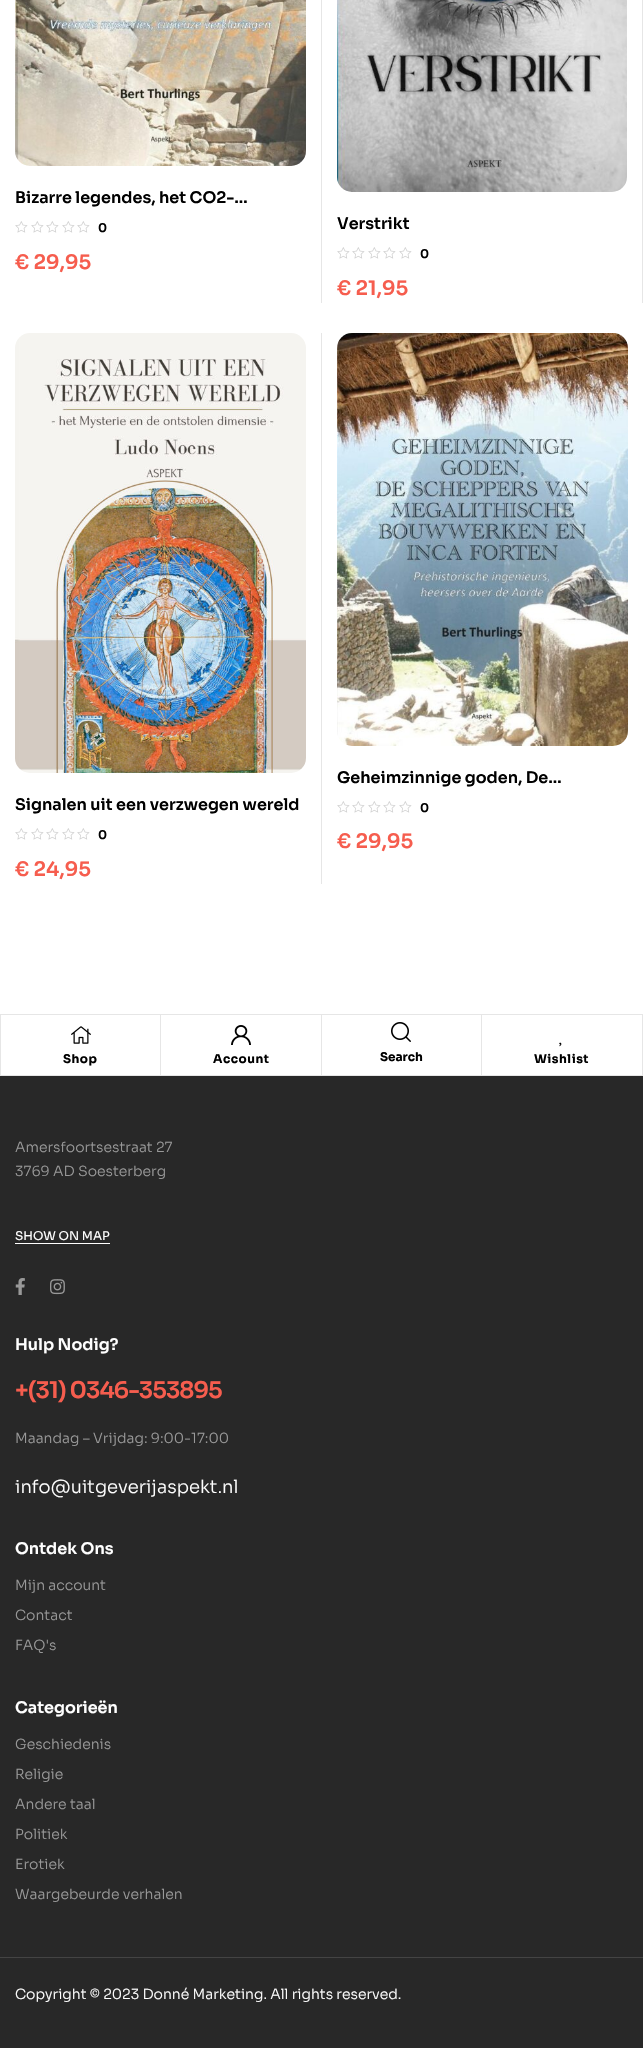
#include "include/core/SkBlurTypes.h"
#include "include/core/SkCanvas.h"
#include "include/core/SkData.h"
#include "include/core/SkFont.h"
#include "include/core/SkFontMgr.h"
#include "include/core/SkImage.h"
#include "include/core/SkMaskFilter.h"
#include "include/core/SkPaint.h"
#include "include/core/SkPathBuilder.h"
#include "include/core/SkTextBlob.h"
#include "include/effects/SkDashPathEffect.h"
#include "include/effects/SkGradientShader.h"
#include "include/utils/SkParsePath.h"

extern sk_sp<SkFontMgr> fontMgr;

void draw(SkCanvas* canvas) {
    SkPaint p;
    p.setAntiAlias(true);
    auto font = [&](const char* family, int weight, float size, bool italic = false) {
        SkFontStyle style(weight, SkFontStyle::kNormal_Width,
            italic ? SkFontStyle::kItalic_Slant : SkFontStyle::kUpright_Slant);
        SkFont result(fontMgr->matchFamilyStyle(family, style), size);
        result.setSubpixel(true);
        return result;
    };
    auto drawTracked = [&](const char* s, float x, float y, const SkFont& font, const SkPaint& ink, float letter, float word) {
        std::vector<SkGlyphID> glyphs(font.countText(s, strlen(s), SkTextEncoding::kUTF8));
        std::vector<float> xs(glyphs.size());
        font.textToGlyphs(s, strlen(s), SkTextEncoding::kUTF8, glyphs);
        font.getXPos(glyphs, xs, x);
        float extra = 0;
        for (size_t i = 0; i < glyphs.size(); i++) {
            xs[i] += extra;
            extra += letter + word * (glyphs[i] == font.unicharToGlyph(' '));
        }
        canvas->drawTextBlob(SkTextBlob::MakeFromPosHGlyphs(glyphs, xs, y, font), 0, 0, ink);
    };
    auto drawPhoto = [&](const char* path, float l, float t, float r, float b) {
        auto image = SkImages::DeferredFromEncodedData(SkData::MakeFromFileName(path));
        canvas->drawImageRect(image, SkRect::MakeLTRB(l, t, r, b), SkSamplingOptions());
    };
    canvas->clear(0xFFFFFFFF);
    p.setColor(0xFFE6E6E6);
    canvas->drawRect(SkRect::MakeLTRB(321, 0, 322, 303), p);
    drawPhoto("media/1.png", 15, 0, 306, 166);
    auto font1 = font("Sora", 600, 16);
    p.setColor(0xFF000000);
    canvas->drawString("Bizarre legendes, het CO2-…", 15, 203, font1, p);
    drawPhoto("media/2.png", 15, 221, 28, 233);
    drawPhoto("media/2.png", 31, 221, 44, 233);
    drawPhoto("media/2.png", 46, 221, 59, 233);
    drawPhoto("media/2.png", 62, 221, 75, 233);
    drawPhoto("media/2.png", 77, 221, 90, 233);
    auto font2 = font("Sora", 600, 12);
    canvas->drawString("0", 98, 232, font2, p);
    auto font3 = font("Sora", 600, 20);
    p.setColor(0xFFF65D4E);
    canvas->drawString("€ 29,95", 15, 269, font3, p);
    p.setColor(0xFFE6E6E6);
    canvas->drawRect(SkRect::MakeLTRB(642, 0, 643, 303), p);
    drawPhoto("media/3.png", 337, 0, 627, 192);
    p.setColor(0xFF000000);
    canvas->drawString("Verstrikt", 337, 229, font1, p);
    drawPhoto("media/2.png", 337, 247, 350, 259);
    drawPhoto("media/2.png", 352, 247, 365, 259);
    drawPhoto("media/2.png", 368, 247, 381, 259);
    drawPhoto("media/2.png", 383, 247, 396, 259);
    drawPhoto("media/2.png", 399, 247, 412, 259);
    canvas->drawString("0", 420, 258, font2, p);
    p.setColor(0xFFF65D4E);
    canvas->drawString("€ 21,95", 337, 295, font3, p);
    p.setColor(0xFFE6E6E6);
    canvas->drawRect(SkRect::MakeLTRB(321, 333, 322, 884), p);
    drawPhoto("media/4.png", 15, 333, 306, 773);
    p.setColor(0xFF000000);
    canvas->drawString("Signalen uit een verzwegen wereld", 15, 810, font1, p);
    drawPhoto("media/2.png", 15, 828, 28, 840);
    drawPhoto("media/2.png", 31, 828, 44, 840);
    drawPhoto("media/2.png", 46, 828, 59, 840);
    drawPhoto("media/2.png", 62, 828, 75, 840);
    drawPhoto("media/2.png", 77, 828, 90, 840);
    canvas->drawString("0", 98, 839, font2, p);
    p.setColor(0xFFF65D4E);
    canvas->drawString("€ 24,95", 15, 876, font3, p);
    drawPhoto("media/5.png", 337, 333, 628, 746);
    p.setColor(0xFF000000);
    canvas->drawString("Geheimzinnige goden, De…", 337, 783, font1, p);
    drawPhoto("media/2.png", 337, 801, 350, 813);
    drawPhoto("media/2.png", 352, 801, 365, 813);
    drawPhoto("media/2.png", 368, 801, 381, 813);
    drawPhoto("media/2.png", 383, 801, 396, 813);
    drawPhoto("media/2.png", 399, 801, 412, 813);
    canvas->drawString("0", 420, 812, font2, p);
    p.setColor(0xFFF65D4E);
    canvas->drawString("€ 29,95", 337, 848, font3, p);
    p.setStyle(SkPaint::kStroke_Style);
    p.setStrokeWidth(1);
    p.setColor(0xFFE6E6E6);
    canvas->drawRect(SkRect::MakeLTRB(0.5f, 1014.5f, 642.5f, 1075.5f), p);
    p.setStyle(SkPaint::kFill_Style);
    canvas->drawRect(SkRect::MakeLTRB(160, 1015, 161, 1075), p);
    drawPhoto("media/6.png", 71, 1026, 91, 1044);
    auto font4 = font("Sora", 700, 12);
    p.setColor(0xFF000000);
    drawTracked("Shop", 63, 1063, font4, p, 0.5f, 0);
    p.setColor(0xFFE6E6E6);
    canvas->drawRect(SkRect::MakeLTRB(321, 1015, 322, 1075), p);
    drawPhoto("media/7.png", 231, 1025, 251, 1045);
    p.setColor(0xFF000000);
    drawTracked("Account", 213, 1063, font4, p, 0.5f, 0);
    p.setColor(0xFFE6E6E6);
    canvas->drawRect(SkRect::MakeLTRB(481, 1015, 482, 1075), p);
    drawPhoto("media/8.png", 391, 1022, 411, 1042);
    p.setColor(0xFF000000);
    canvas->drawString("Search", 380, 1061, font4, p);
    drawPhoto("media/9.png", 559, 1042, 562, 1047);
    drawTracked("Wishlist", 534, 1063, font4, p, 0.5f, 0);
    p.setColor(0xFF282828);
    canvas->drawRect(SkRect::MakeLTRB(0, 1076, 643, 1957), p);
    auto font5 = font("Sora", 300, 14);
    p.setColor(0xFF999999);
    canvas->drawString("Amersfoortsestraat 27", 15, 1152, font5, p);
    canvas->drawString("3769 AD Soesterberg", 15, 1176, font5, p);
    p.setColor(0xFFFFFFFF);
    canvas->drawRect(SkRect::MakeLTRB(15, 1243, 110, 1244), p);
    auto font6 = font("Sora", 400, 12);
    canvas->drawString("SHOW ON MAP", 15, 1240, font6, p);
    drawPhoto("media/10.png", 15, 1278, 25, 1295);
    drawPhoto("media/11.png", 50, 1279, 65, 1295);
    canvas->drawString("Hulp Nodig?", 15, 1350, font1, p);
    auto font7 = font("Sora", 600, 23);
    p.setColor(0xFFF65D4E);
    drawTracked("+(31) 0346-353895", 15, 1398, font7, p, -1, 0);
    p.setColor(0xFF999999);
    canvas->drawString("Maandag – Vrijdag: 9:00-17:00", 15, 1443, font5, p);
    auto font8 = font("Sora", 300, 18);
    p.setColor(0xFFFFFFFF);
    canvas->drawString("info@uitgeverijaspekt.nl", 15, 1493, font8, p);
    canvas->drawString("Ontdek Ons", 15, 1554, font1, p);
    p.setColor(0xFF999999);
    {
        const struct { const char* s; float x, y; } items[] = {
            {"Mijn account", 15, 1590},
            {"Contact", 15, 1620},
            {"FAQ's", 15, 1650},
        };
        for (auto [s, x, y] : items) {
            canvas->drawString(s, x, y, font5, p);
        }
    }
    p.setColor(0xFFFFFFFF);
    canvas->drawString("Categorieën", 15, 1713, font1, p);
    p.setColor(0xFF999999);
    {
        const struct { const char* s; float x, y; } items[] = {
            {"Geschiedenis", 15, 1749},
            {"Religie", 15, 1779},
            {"Andere taal", 15, 1809},
            {"Politiek", 15, 1839},
            {"Erotiek", 15, 1869},
            {"Waargebeurde verhalen", 15, 1899},
        };
        for (auto [s, x, y] : items) {
            canvas->drawString(s, x, y, font5, p);
        }
    }
    p.setColor(0xFF282828);
    canvas->drawRect(SkRect::MakeLTRB(0, 1958, 643, 2048), p);
    p.setColor(0xFF444444);
    canvas->drawRect(SkRect::MakeLTRB(0, 1957, 643, 1958), p);
    p.setColor(0xFFFFFFFF);
    canvas->drawString("Copyright © 2023 Donné Marketing. All rights reserved.", 15, 1999, font5, p);
}
